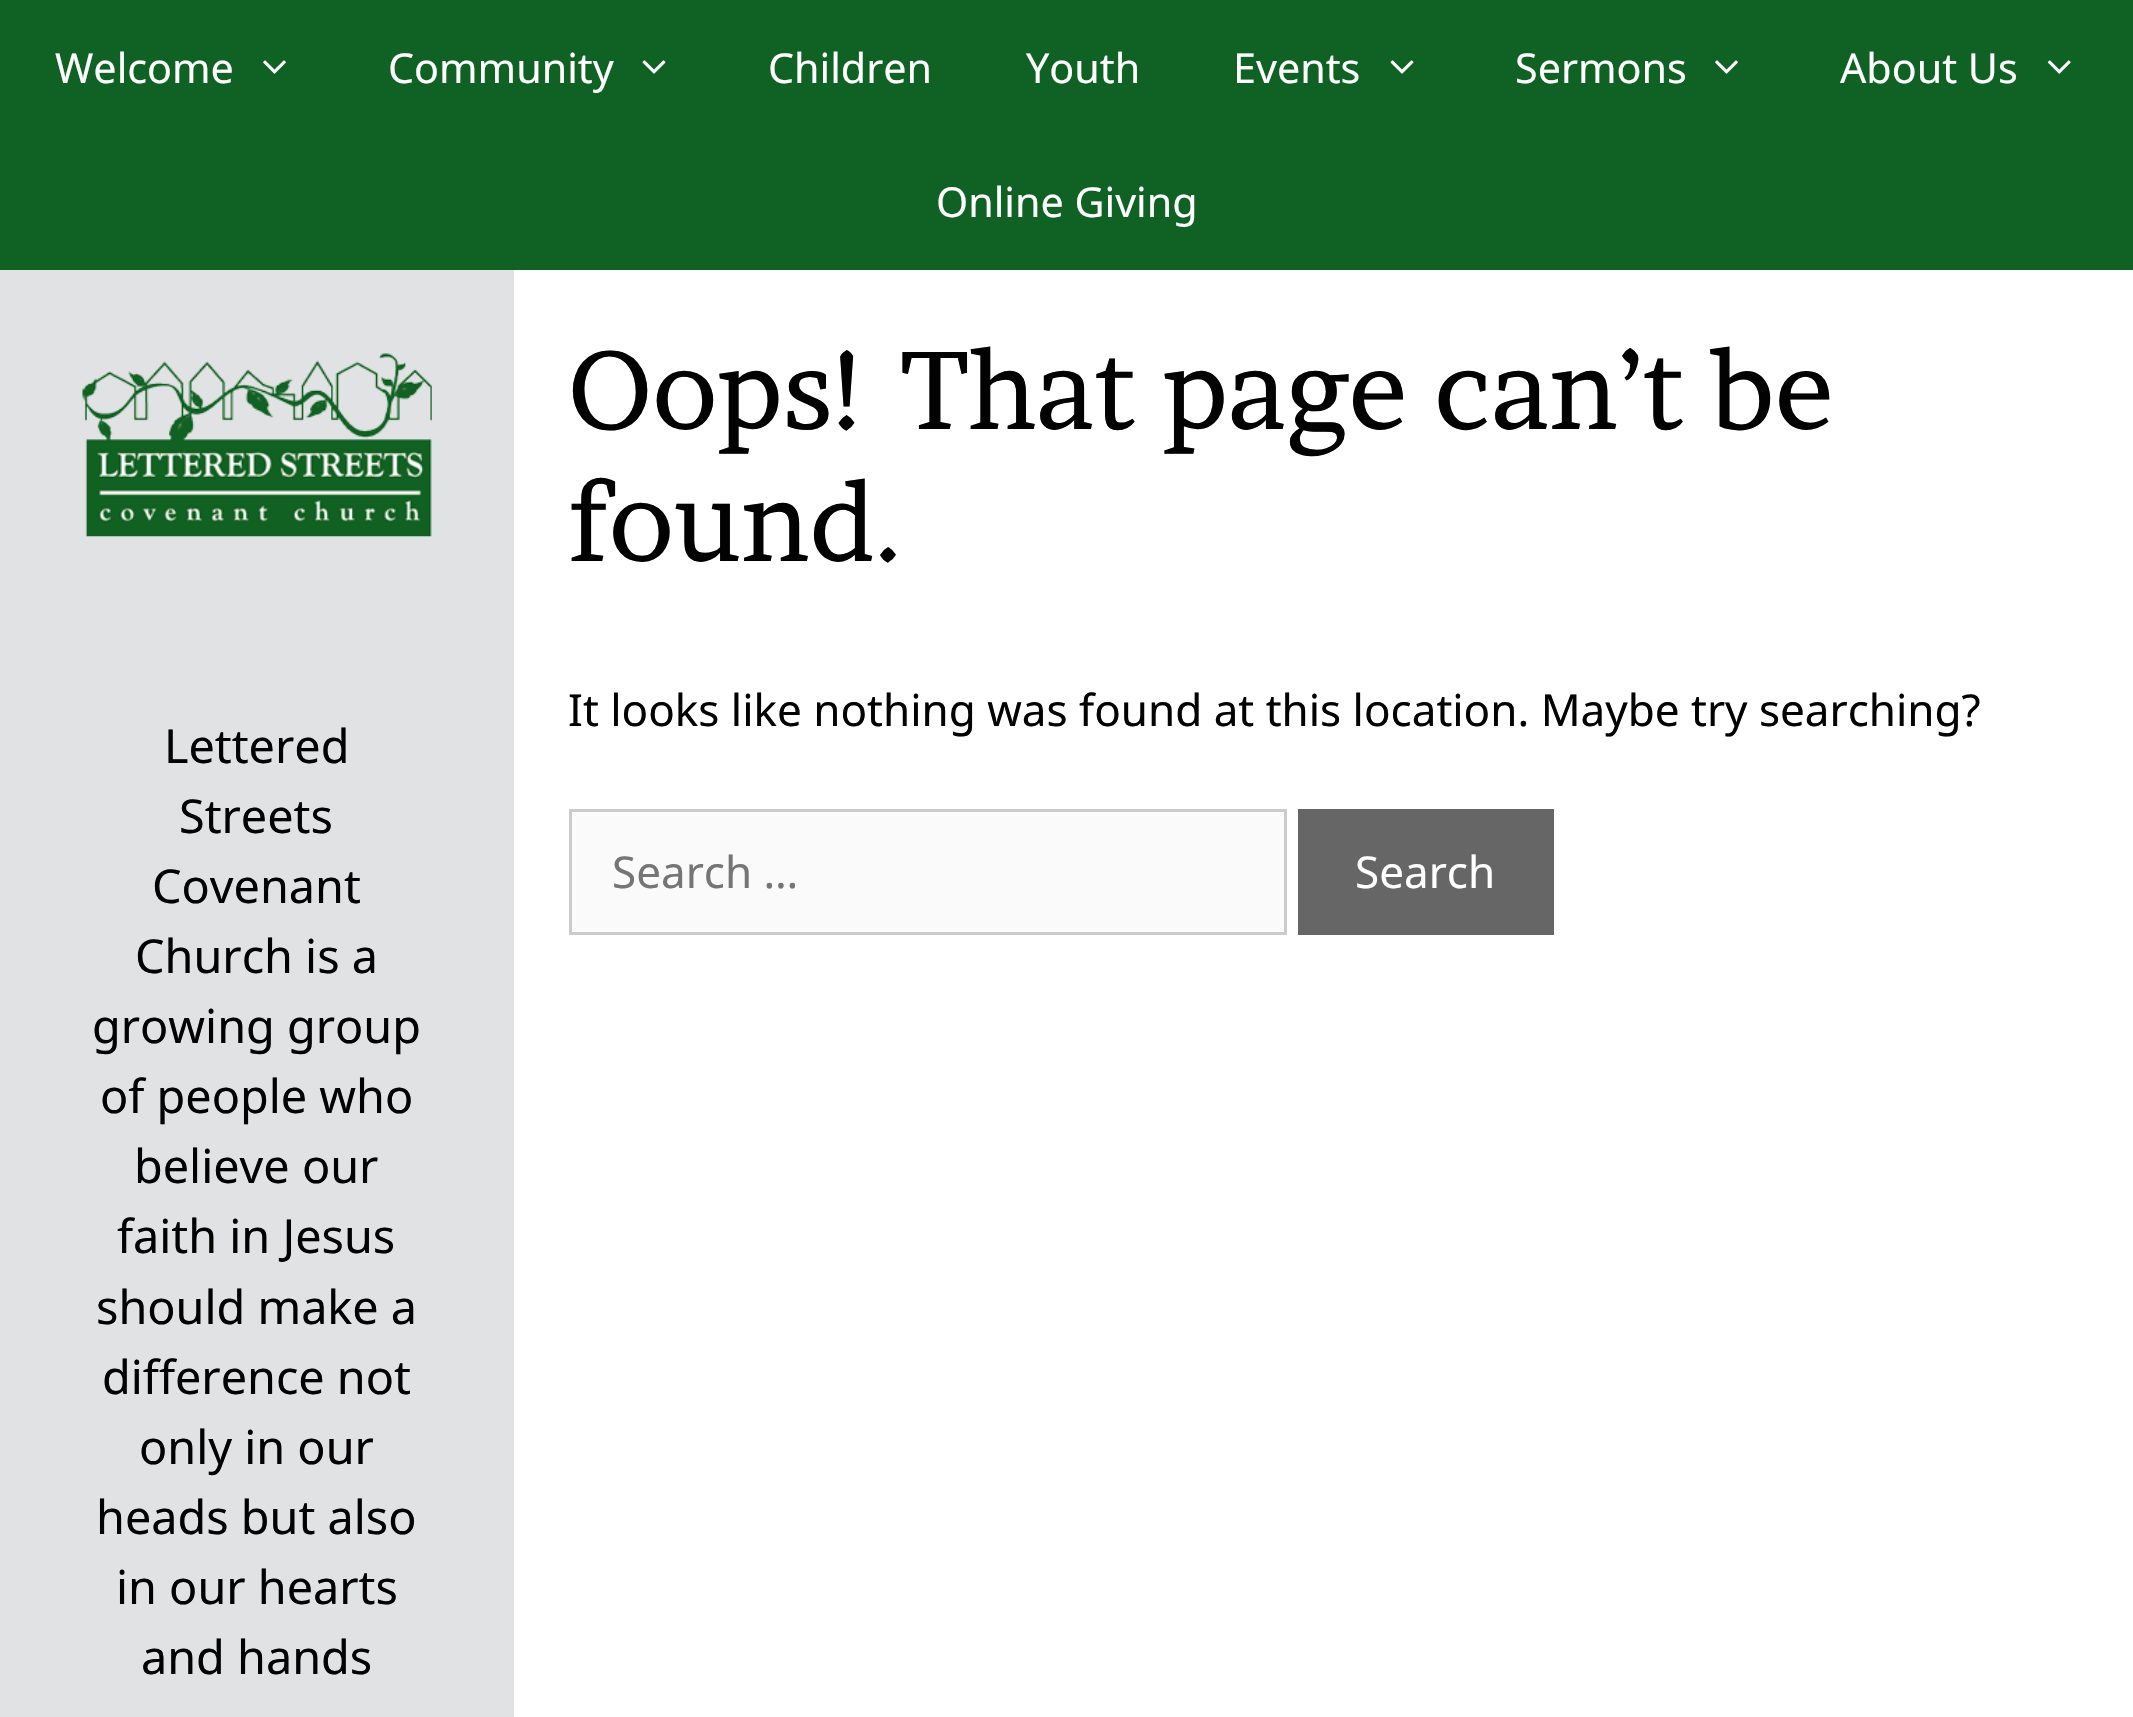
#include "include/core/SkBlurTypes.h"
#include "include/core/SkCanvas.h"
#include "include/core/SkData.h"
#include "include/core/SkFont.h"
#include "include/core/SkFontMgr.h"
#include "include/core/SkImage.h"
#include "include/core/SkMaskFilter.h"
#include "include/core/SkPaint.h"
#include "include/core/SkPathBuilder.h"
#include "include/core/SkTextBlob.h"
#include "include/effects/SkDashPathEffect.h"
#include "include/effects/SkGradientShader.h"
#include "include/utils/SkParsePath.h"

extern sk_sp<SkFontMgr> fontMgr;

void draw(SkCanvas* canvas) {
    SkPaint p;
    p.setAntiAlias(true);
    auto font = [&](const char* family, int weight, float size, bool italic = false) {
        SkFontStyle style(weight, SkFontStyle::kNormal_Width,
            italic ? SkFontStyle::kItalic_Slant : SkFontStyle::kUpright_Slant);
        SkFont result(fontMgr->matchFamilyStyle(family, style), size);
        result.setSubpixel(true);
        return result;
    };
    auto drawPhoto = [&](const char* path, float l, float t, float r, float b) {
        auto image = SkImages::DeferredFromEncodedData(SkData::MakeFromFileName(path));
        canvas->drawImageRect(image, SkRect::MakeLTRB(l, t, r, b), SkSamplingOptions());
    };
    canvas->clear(0xFF0F6223);
    auto font1 = font("Noto Sans", 400, 41.25f);
    p.setColor(0xFFFFFFFF);
    canvas->drawString("Welcome", 55, 83, font1, p);
    drawPhoto("media/1.png", 263, 60, 286, 74);
    canvas->drawString("Community", 388, 83, font1, p);
    drawPhoto("media/2.png", 642, 60, 666, 74);
    {
        const struct { const char* s; float x, y; } items[] = {
            {"Children", 768, 83},
            {"Youth", 1026, 83},
            {"Events", 1233, 83},
        };
        for (auto [s, x, y] : items) {
            canvas->drawString(s, x, y, font1, p);
        }
    }
    drawPhoto("media/2.png", 1390, 60, 1414, 74);
    canvas->drawString("Sermons", 1515, 83, font1, p);
    drawPhoto("media/1.png", 1715, 60, 1738, 74);
    canvas->drawString("About Us", 1840, 83, font1, p);
    drawPhoto("media/3.png", 2047, 60, 2071, 74);
    canvas->drawString("Online Giving", 936, 217, font1, p);
    canvas->drawRect(SkRect::MakeLTRB(514, 270, 2133, 1717), p);
    auto font2 = font("Brawler", 400, 110);
    p.setColor(0xFF020202);
    canvas->drawString("Oops! That page can’t be", 568, 429, font2, p);
    canvas->drawString("found.", 568, 561, font2, p);
    auto font3 = font("Noto Sans", 400, 44);
    canvas->drawString("It looks like nothing was found at this location. Maybe try searching?", 568, 726, font3, p);
    p.setColor(0xFFFAFAFA);
    canvas->drawRect(SkRect::MakeLTRB(570.5f, 810.5f, 1285.5f, 933.5f), p);
    p.setStyle(SkPaint::kStroke_Style);
    p.setStrokeWidth(3);
    p.setColor(0xFFCCCCCC);
    canvas->drawRect(SkRect::MakeLTRB(570.5f, 810.5f, 1285.5f, 933.5f), p);
    p.setStyle(SkPaint::kFill_Style);
    p.setColor(0xFF757575);
    canvas->drawString("Search …", 612, 888, font3, p);
    p.setColor(0xFF666666);
    canvas->drawRect(SkRect::MakeLTRB(1298, 809, 1554, 935), p);
    p.setColor(0xFFFFFFFF);
    canvas->drawString("Search", 1355, 888, font3, p);
    p.setColor(0xFFE0E2E3);
    canvas->drawRect(SkRect::MakeLTRB(0, 270, 514, 1717), p);
    drawPhoto("media/4.png", 82, 353, 432, 537);
    auto font4 = font("Noto Sans", 400, 46.75f);
    p.setColor(0xFF020202);
    {
        const struct { const char* s; float x, y; } items[] = {
            {"Lettered", 164, 763},
            {"Streets", 179, 833},
            {"Covenant", 152, 903},
            {"Church is a", 135, 973},
            {"growing group", 92, 1043},
            {"of people who", 100, 1113},
            {"believe our", 134, 1183},
            {"faith in Jesus", 117, 1253},
            {"should make a", 96, 1324},
            {"difference not", 102, 1394},
            {"only in our", 139, 1464},
            {"heads but also", 96, 1534},
            {"in our hearts", 116, 1604},
            {"and hands", 141, 1674},
        };
        for (auto [s, x, y] : items) {
            canvas->drawString(s, x, y, font4, p);
        }
    }
}
